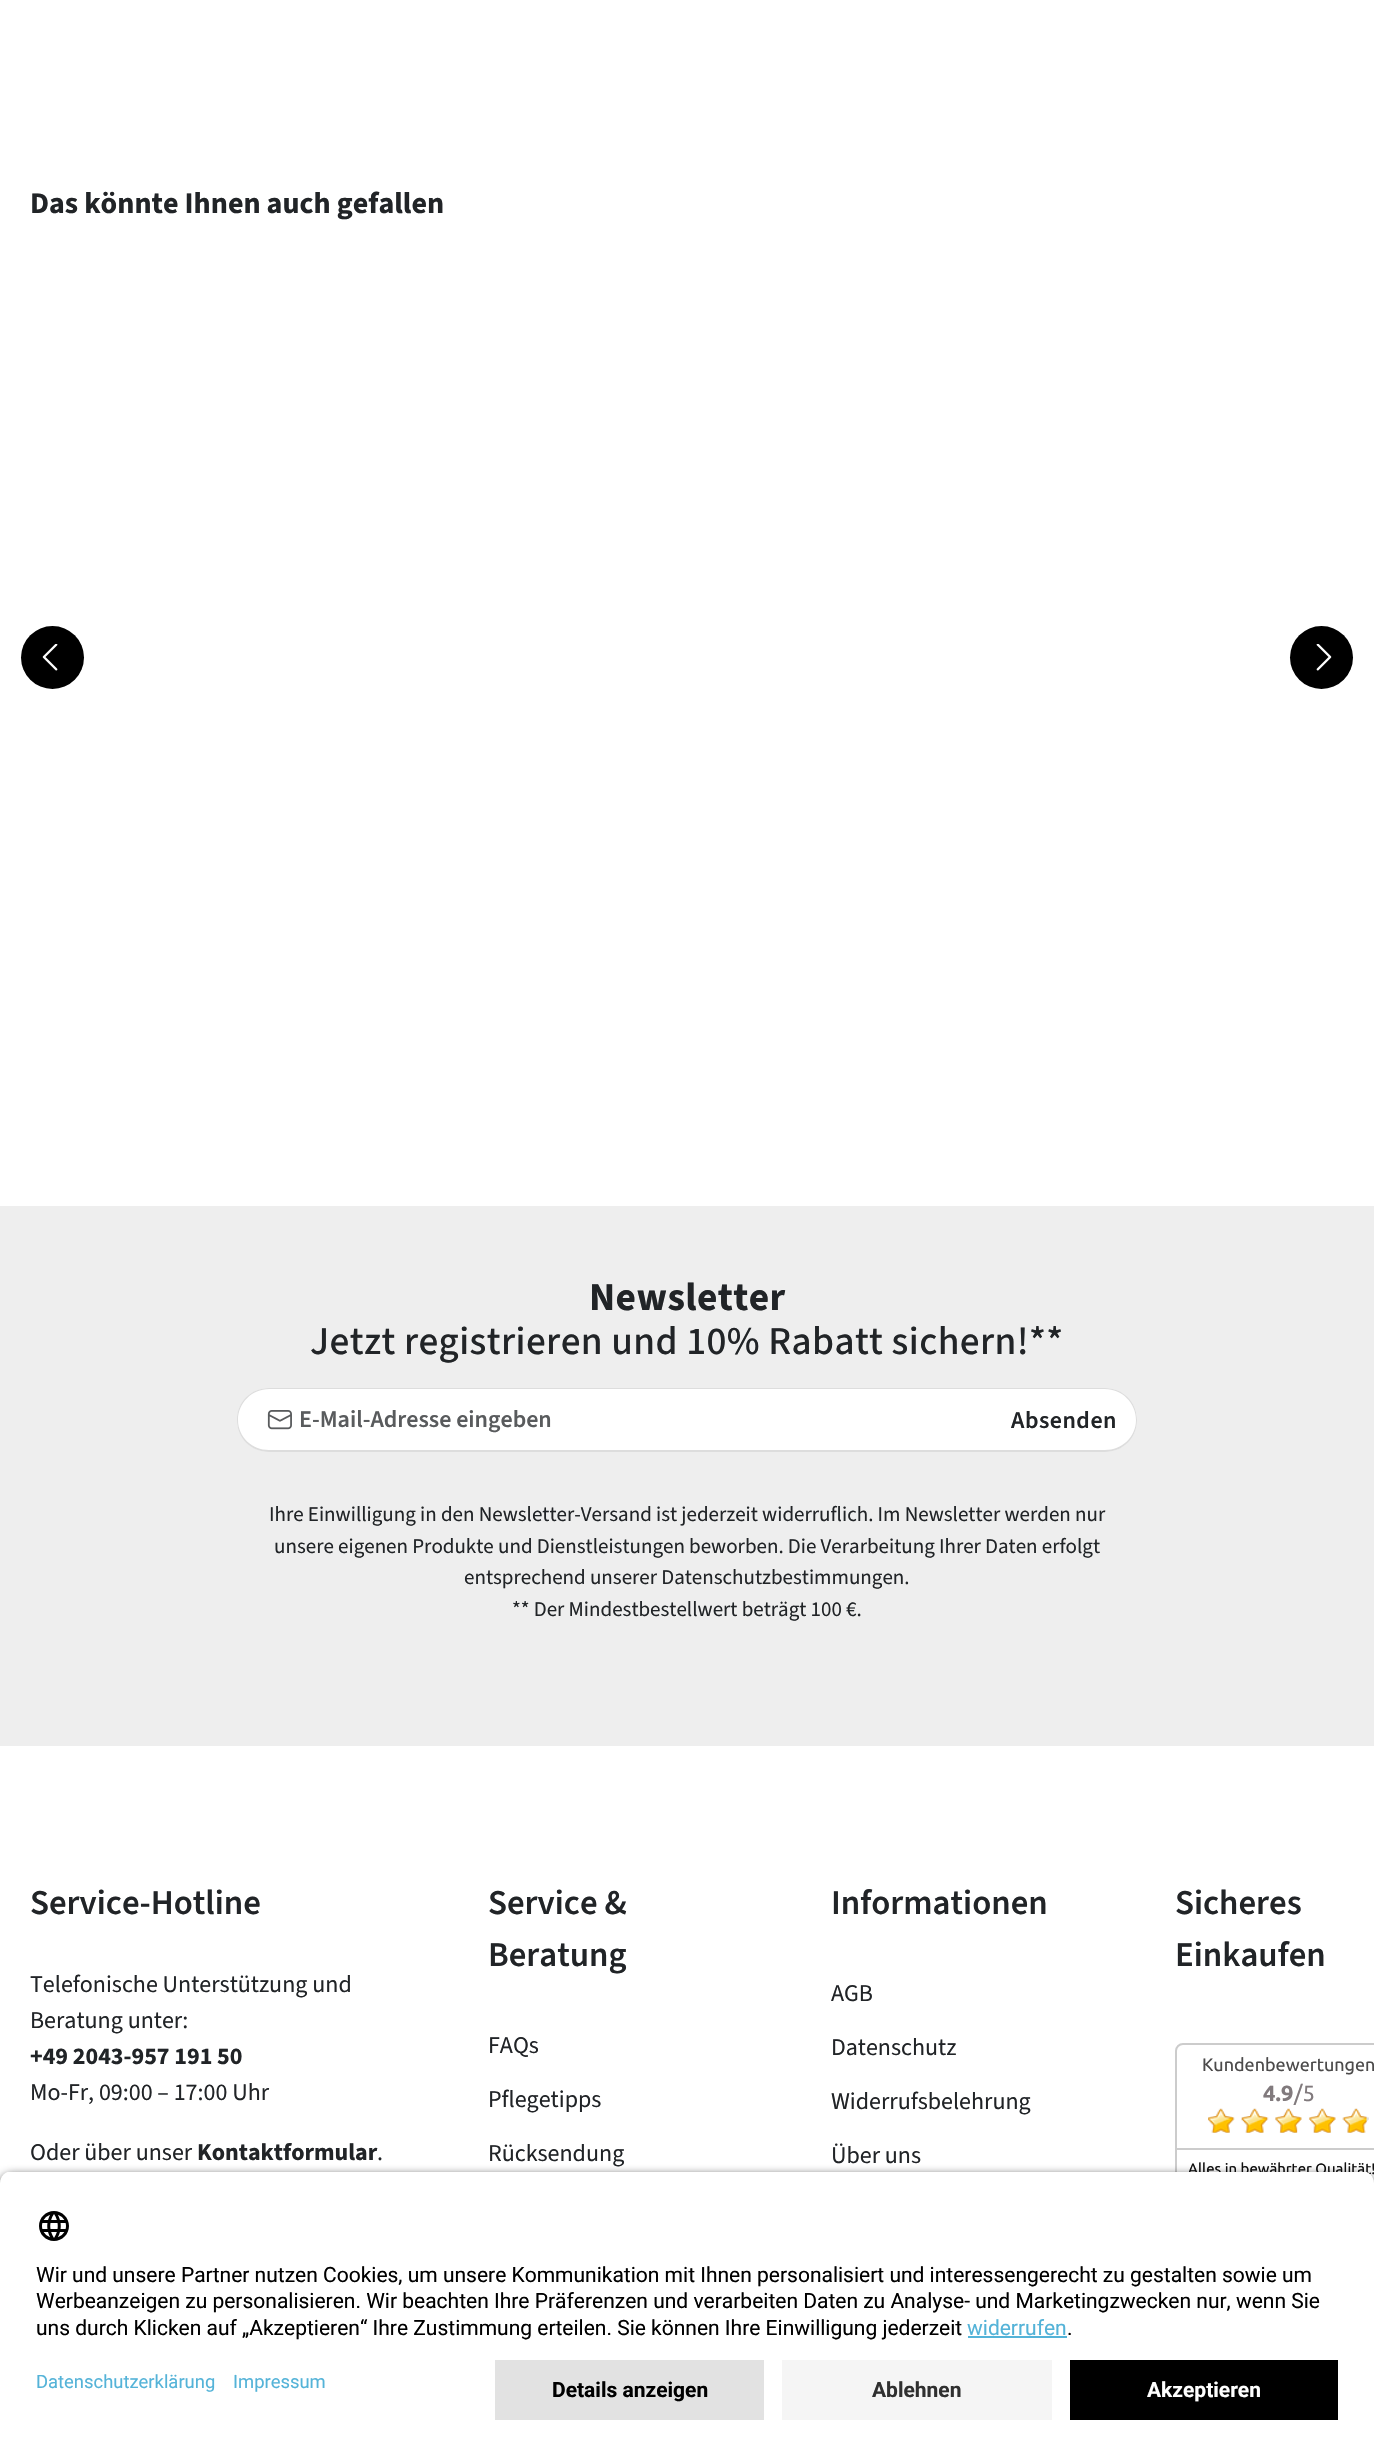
#include "include/core/SkBlurTypes.h"
#include "include/core/SkCanvas.h"
#include "include/core/SkData.h"
#include "include/core/SkFont.h"
#include "include/core/SkFontMgr.h"
#include "include/core/SkImage.h"
#include "include/core/SkMaskFilter.h"
#include "include/core/SkPaint.h"
#include "include/core/SkPathBuilder.h"
#include "include/core/SkTextBlob.h"
#include "include/effects/SkDashPathEffect.h"
#include "include/effects/SkGradientShader.h"
#include "include/utils/SkParsePath.h"

extern sk_sp<SkFontMgr> fontMgr;

void draw(SkCanvas* canvas) {
    SkPaint p;
    p.setAntiAlias(true);
    auto font = [&](const char* family, int weight, float size, bool italic = false) {
        SkFontStyle style(weight, SkFontStyle::kNormal_Width,
            italic ? SkFontStyle::kItalic_Slant : SkFontStyle::kUpright_Slant);
        SkFont result(fontMgr->matchFamilyStyle(family, style), size);
        result.setSubpixel(true);
        return result;
    };
    auto drawTracked = [&](const char* s, float x, float y, const SkFont& font, const SkPaint& ink, float letter, float word) {
        std::vector<SkGlyphID> glyphs(font.countText(s, strlen(s), SkTextEncoding::kUTF8));
        std::vector<float> xs(glyphs.size());
        font.textToGlyphs(s, strlen(s), SkTextEncoding::kUTF8, glyphs);
        font.getXPos(glyphs, xs, x);
        float extra = 0;
        for (size_t i = 0; i < glyphs.size(); i++) {
            xs[i] += extra;
            extra += letter + word * (glyphs[i] == font.unicharToGlyph(' '));
        }
        canvas->drawTextBlob(SkTextBlob::MakeFromPosHGlyphs(glyphs, xs, y, font), 0, 0, ink);
    };
    auto drawPhoto = [&](const char* path, float l, float t, float r, float b) {
        auto image = SkImages::DeferredFromEncodedData(SkData::MakeFromFileName(path));
        canvas->drawImageRect(image, SkRect::MakeLTRB(l, t, r, b), SkSamplingOptions());
    };
    canvas->clear(0xFFFFFFFF);
    auto font1 = font("Source Sans 3", 700, 30);
    p.setColor(0xFF212427);
    canvas->drawString("Das könnte Ihnen auch gefallen", 30, 213, font1, p);
    p.setColor(0xFF000000);
    canvas->drawCircle(52.5f, 657.5f, 31.5f, p);
    drawPhoto("media/1.png", 42, 644, 58, 671);
    canvas->drawCircle(1321.5f, 657.5f, 31.5f, p);
    drawPhoto("media/2.png", 1316, 644, 1332, 671);
    p.setColor(0xFFEEEEEE);
    canvas->drawRect(SkRect::MakeLTRB(0, 1206, 1374, 1746), p);
    auto font2 = font("Source Sans 3", 700, 39.4f);
    p.setColor(0xFF212427);
    drawTracked("Newsletter", 589, 1310, font2, p, 0.4f, 0);
    auto font3 = font("Source Sans 3", 500, 39.4f);
    drawTracked("Jetzt registrieren und 10% Rabatt sichern!**", 310, 1354, font3, p, 0.4f, 0);
    p.setColor(0xFFFFFFFF);
    canvas->drawPath(SkPathBuilder().moveTo(269, 1388).lineTo(995, 1388).lineTo(995, 1452).lineTo(269, 1452).cubicTo(251.5f, 1452, 237, 1437.5f, 237, 1420).cubicTo(237, 1402.5f, 251.5f, 1388, 269, 1388).close().detach(), p);
    p.setColor(0xFFDDDDDD);
    canvas->drawPath(SkPathBuilder(SkPathFillType::kEvenOdd).moveTo(269, 1388).lineTo(994, 1388).lineTo(994, 1452).lineTo(269, 1452).cubicTo(251, 1452, 237, 1438, 237, 1420).cubicTo(237, 1402, 251, 1388, 269, 1388).close().moveTo(269, 1389).lineTo(994, 1389).lineTo(994, 1450).lineTo(269, 1450).cubicTo(252, 1450, 238, 1437, 238, 1420).cubicTo(238, 1403, 252, 1389, 269, 1389).close().detach(), p);
    drawPhoto("media/3.png", 267, 1410, 292, 1430);
    auto font4 = font("Source Sans 3", 600, 24);
    p.setColor(0xFF595B5D);
    canvas->drawString("E-Mail-Adresse eingeben", 299, 1427, font4, p);
    p.setColor(0xFFFFFFFF);
    canvas->drawPath(SkPathBuilder().moveTo(993, 1388).lineTo(1105, 1388).cubicTo(1122.5f, 1388, 1137, 1402.5f, 1137, 1420).cubicTo(1137, 1437.5f, 1122.5f, 1452, 1105, 1452).lineTo(993, 1452).close().detach(), p);
    p.setColor(0xFFDDDDDD);
    canvas->drawPath(SkPathBuilder(SkPathFillType::kEvenOdd).moveTo(993, 1388).lineTo(1105, 1388).cubicTo(1123, 1388, 1137, 1402, 1137, 1420).cubicTo(1137, 1438, 1123, 1452, 1105, 1452).lineTo(993, 1452).close().moveTo(993, 1389).lineTo(1105, 1389).cubicTo(1122, 1389, 1136, 1403, 1136, 1420).cubicTo(1136, 1437, 1122, 1450, 1105, 1450).lineTo(993, 1450).close().detach(), p);
    p.setColor(0xFF212427);
    drawTracked("Absenden", 1011, 1428, font4, p, 0.5f, 0);
    auto font5 = font("Source Sans 3", 400, 21);
    {
        const struct { const char* s; float x, y; } items[] = {
            {"Ihre Einwilligung in den Newsletter-Versand ist jederzeit widerruflich. Im Newsletter werden nur", 269, 1521},
            {"unsere eigenen Produkte und Dienstleistungen beworben. Die Verarbeitung Ihrer Daten erfolgt", 274, 1553},
            {"entsprechend unserer Datenschutzbestimmungen.", 464, 1584},
            {"** Der Mindestbestellwert beträgt 100 €.", 512, 1616},
        };
        for (auto [s, x, y] : items) {
            canvas->drawString(s, x, y, font5, p);
        }
    }
    auto font6 = font("Source Sans 3", 600, 34.75f);
    canvas->drawString("Service-Hotline", 30, 1914, font6, p);
    auto font7 = font("Source Sans 3", 400, 24);
    canvas->drawString("Telefonische Unterstützung und", 30, 1992, font7, p);
    canvas->drawString("Beratung unter:", 30, 2028, font7, p);
    auto font8 = font("Source Sans 3", 700, 24);
    canvas->drawString("+49 2043-957 191 50", 30, 2064, font8, p);
    canvas->drawString("Mo-Fr, 09:00 – 17:00 Uhr", 30, 2100, font7, p);
    canvas->drawString("Oder über unser", 30, 2160, font7, p);
    canvas->drawString("Kontaktformular", 197, 2160, font8, p);
    canvas->drawString(".", 377, 2160, font7, p);
    canvas->drawString("Service &", 488, 1914, font6, p);
    canvas->drawString("Beratung", 488, 1966, font6, p);
    {
        const struct { const char* s; float x, y; } items[] = {
            {"FAQs", 488, 2053},
            {"Pflegetipps", 488, 2107},
            {"Rücksendung", 488, 2161},
        };
        for (auto [s, x, y] : items) {
            canvas->drawString(s, x, y, font7, p);
        }
    }
    canvas->drawString("Informationen", 831, 1914, font6, p);
    {
        const struct { const char* s; float x, y; } items[] = {
            {"AGB", 831, 2001},
            {"Datenschutz", 831, 2055},
            {"Widerrufsbelehrung", 831, 2109},
            {"Über uns", 831, 2163},
        };
        for (auto [s, x, y] : items) {
            canvas->drawString(s, x, y, font7, p);
        }
    }
    canvas->drawString("Sicheres", 1175, 1914, font6, p);
    canvas->drawString("Einkaufen", 1175, 1966, font6, p);
    p.setStyle(SkPaint::kStroke_Style);
    p.setStrokeWidth(2);
    p.setColor(0xFFCCCCCC);
    canvas->drawRoundRect(SkRect::MakeLTRB(1176, 2044, 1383, 2320), 7, 7, p);
    auto font9 = font("Ubuntu", 400, 18);
    p.setStyle(SkPaint::kFill_Style);
    p.setColor(0xFF4C4B4B);
    canvas->drawString("Kundenbewertungen", 1202, 2071, font9, p);
    auto font10 = font("Ubuntu", 700, 22);
    p.setColor(0xFF817A7D);
    canvas->drawString("4.9", 1263, 2101, font10, p);
    auto font11 = font("Ubuntu", 400, 22);
    canvas->drawString("/5", 1294, 2101, font11, p);
    drawPhoto("media/4.png", 1208, 2108, 1369, 2133);
    drawPhoto("media/5.png", 1208, 2108, 1367, 2133);
    p.setColor(0xFFCCCCCC);
    canvas->drawRect(SkRect::MakeLTRB(1176, 2148, 1374, 2150), p);
    auto font12 = font("Ubuntu", 400, 15);
    p.setColor(0xFF0F0F0F);
    canvas->drawString("Alles in bewährter Qualität!", 1188, 2174, font12, p);
    p.setColor(0xCC000000);
    p.setMaskFilter(SkMaskFilter::MakeBlur(kNormal_SkBlurStyle, 5));
    canvas->drawRoundRect(SkRect::MakeLTRB(0, 2175, 1374, 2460), 12, 12, p);
    p.setMaskFilter(nullptr);
    canvas->save();
    canvas->clipPath(SkPathBuilder().moveTo(12, 2171).lineTo(1362, 2171).cubicTo(1368.5f, 2171, 1374, 2176.5f, 1374, 2183).lineTo(1374, 2348).lineTo(0, 2348).lineTo(0, 2183).cubicTo(0, 2176.5f, 5.5f, 2171, 12, 2171).close().detach(), true);
    p.setColor(0xFFFFFFFF);
    canvas->drawRect(SkRect::MakeLTRB(0, 2172, 1374, 2348), p);
    canvas->restore();
    drawPhoto("media/6.png", 39, 2211, 69, 2241);
    auto font13 = font("Roboto", 400, 21);
    p.setColor(0xFF000000);
    {
        const struct { const char* s; float x, y; } items[] = {
            {"Wir und unsere Partner nutzen Cookies, um unsere Kommunikation mit Ihnen personalisiert und interessengerecht zu gestalten sowie um", 36, 2282},
            {"Werbeanzeigen zu personalisieren. Wir beachten Ihre Präferenzen und verarbeiten Daten zu Analyse- und Marketingzwecken nur, wenn Sie", 36, 2308},
            {"uns durch Klicken auf „Akzeptieren“ Ihre Zustimmung erteilen. Sie können Ihre Einwilligung jederzeit", 36, 2335},
        };
        for (auto [s, x, y] : items) {
            canvas->drawString(s, x, y, font13, p);
        }
    }
    p.setColor(0xFF54B3D8);
    canvas->drawString("widerrufen", 967, 2335, font13, p);
    canvas->drawRect(SkRect::MakeLTRB(968, 2336, 1067, 2338), p);
    p.setColor(0xFF000000);
    canvas->drawString(".", 1067, 2335, font13, p);
    p.setColor(0xFFFFFFFF);
    canvas->drawRect(SkRect::MakeLTRB(0, 2348, 1374, 2455), p);
    auto font14 = font("Roboto", 400, 18.4f);
    p.setColor(0xFF54B3D8);
    canvas->drawString("Datenschutzerklärung", 36, 2388, font14, p);
    canvas->drawString("Impressum", 233, 2388, font14, p);
    p.setColor(0xFFE2E2E2);
    canvas->drawRect(SkRect::MakeLTRB(495, 2360, 764, 2420), p);
    auto font15 = font("Roboto", 700, 21);
    p.setColor(0xFF000000);
    canvas->drawString("Details anzeigen", 552, 2397, font15, p);
    p.setColor(0xFFF5F5F5);
    canvas->drawRect(SkRect::MakeLTRB(782, 2360, 1052, 2420), p);
    p.setColor(0xFF303030);
    canvas->drawString("Ablehnen", 872, 2397, font15, p);
    p.setColor(0xFF000000);
    canvas->drawRect(SkRect::MakeLTRB(1070, 2360, 1338, 2420), p);
    p.setColor(0xFFFFFFFF);
    canvas->drawString("Akzeptieren", 1147, 2397, font15, p);
}
